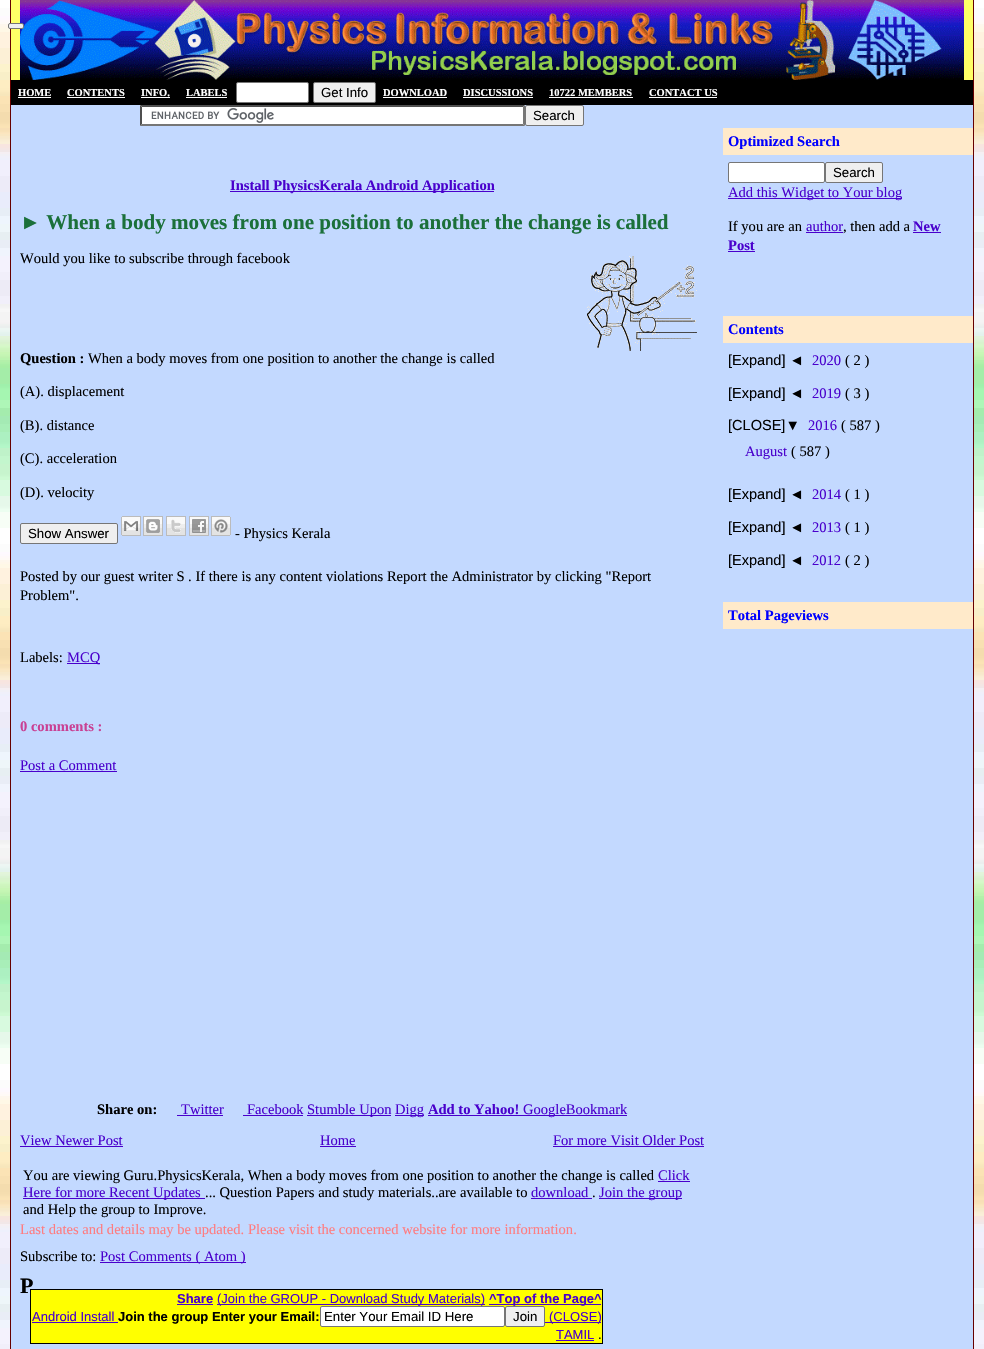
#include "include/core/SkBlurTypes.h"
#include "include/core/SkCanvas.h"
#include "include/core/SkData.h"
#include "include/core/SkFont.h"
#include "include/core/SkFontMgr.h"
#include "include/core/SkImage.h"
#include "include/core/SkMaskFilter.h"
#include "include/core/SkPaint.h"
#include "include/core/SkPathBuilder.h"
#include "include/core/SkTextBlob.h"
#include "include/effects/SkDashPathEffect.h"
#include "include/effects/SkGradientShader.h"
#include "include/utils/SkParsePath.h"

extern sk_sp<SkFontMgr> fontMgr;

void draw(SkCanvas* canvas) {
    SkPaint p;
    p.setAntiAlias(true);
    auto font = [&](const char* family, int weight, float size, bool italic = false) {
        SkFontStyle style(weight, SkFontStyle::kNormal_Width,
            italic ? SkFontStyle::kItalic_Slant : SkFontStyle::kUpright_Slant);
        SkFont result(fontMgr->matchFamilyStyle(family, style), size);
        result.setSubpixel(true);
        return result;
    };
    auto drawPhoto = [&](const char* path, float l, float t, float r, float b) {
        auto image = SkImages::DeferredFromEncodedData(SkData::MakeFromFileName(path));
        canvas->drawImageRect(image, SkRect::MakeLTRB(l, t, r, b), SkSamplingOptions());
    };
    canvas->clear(0xFFFFFFFF);
    drawPhoto("media/1.png", 0, 0, 984, 1349);
    {
        const struct { float l, t, r, b; SkColor color; } items[] = {
            {11, 105, 973, 1349, 0xFFC3D9FF},
            {973, 0, 974, 1349, 0xFF660000},
            {10, 0, 11, 1349, 0xFF660000},
            {11, 0, 973, 80, 0xFFFFFF66},
        };
        for (auto [l, t, r, b, color] : items) {
            p.setColor(color);
            canvas->drawRect(SkRect::MakeLTRB(l, t, r, b), p);
        }
    }
    drawPhoto("media/2.png", 20, 0, 964, 80);
    p.setColor(0xFFEFEFEF);
    canvas->drawRoundRect(SkRect::MakeLTRB(8.5f, 23.5f, 23.5f, 28.5f), 1.5f, 1.5f, p);
    p.setStyle(SkPaint::kStroke_Style);
    p.setStrokeWidth(1);
    p.setColor(0xFF767676);
    canvas->drawRoundRect(SkRect::MakeLTRB(8.5f, 23.5f, 23.5f, 28.5f), 1.5f, 1.5f, p);
    p.setStyle(SkPaint::kFill_Style);
    p.setColor(0xFF000000);
    canvas->drawRect(SkRect::MakeLTRB(11, 80, 973, 105), p);
    auto font1 = font("Liberation Serif", 700, 10.5f);
    p.setColor(0xFFFFFFFF);
    canvas->drawString("HOME", 18, 96, font1, p);
    canvas->drawRect(SkRect::MakeLTRB(18, 97, 51, 98), p);
    canvas->drawString("CONTENTS", 67, 96, font1, p);
    canvas->drawRect(SkRect::MakeLTRB(67, 97, 125, 98), p);
    canvas->drawString("INFO.", 141, 96, font1, p);
    canvas->drawRect(SkRect::MakeLTRB(141, 97, 170, 98), p);
    canvas->drawString("LABELS", 186, 96, font1, p);
    canvas->drawRect(SkRect::MakeLTRB(186, 97, 227, 98), p);
    canvas->drawRoundRect(SkRect::MakeLTRB(236.5f, 82.5f, 308.5f, 102.5f), 1.5f, 1.5f, p);
    p.setStyle(SkPaint::kStroke_Style);
    p.setColor(0xFF767676);
    canvas->drawRoundRect(SkRect::MakeLTRB(236.5f, 82.5f, 308.5f, 102.5f), 1.5f, 1.5f, p);
    p.setStyle(SkPaint::kFill_Style);
    p.setColor(0xFFEFEFEF);
    canvas->drawRoundRect(SkRect::MakeLTRB(313.5f, 82.5f, 375.5f, 102.5f), 1.5f, 1.5f, p);
    p.setStyle(SkPaint::kStroke_Style);
    p.setColor(0xFF767676);
    canvas->drawRoundRect(SkRect::MakeLTRB(313.5f, 82.5f, 375.5f, 102.5f), 1.5f, 1.5f, p);
    auto font2 = font("Liberation Sans", 400, 13.25f);
    p.setStyle(SkPaint::kFill_Style);
    p.setColor(0xFF000000);
    canvas->drawString("Get Info", 321, 97, font2, p);
    p.setColor(0xFFFFFFFF);
    canvas->drawString("DOWNLOAD", 383, 96, font1, p);
    canvas->drawRect(SkRect::MakeLTRB(383, 97, 447, 98), p);
    canvas->drawString("DISCUSSIONS", 463, 96, font1, p);
    canvas->drawRect(SkRect::MakeLTRB(463, 97, 533, 98), p);
    canvas->drawString("10722 MEMBERS", 549, 96, font1, p);
    canvas->drawRect(SkRect::MakeLTRB(549, 97, 633, 98), p);
    canvas->drawString("CONTACT US", 649, 96, font1, p);
    canvas->drawRect(SkRect::MakeLTRB(649, 97, 717, 98), p);
    canvas->drawRect(SkRect::MakeLTRB(140, 105, 525, 126), p);
    drawPhoto("media/3.png", 151, 108, 274, 123);
    p.setColor(0xFF4F4F4F);
    canvas->drawPath(SkPathBuilder().moveTo(140, 105).lineTo(525, 105).lineTo(523, 107).lineTo(142, 107).close().detach(), p);
    p.setColor(0xFF767676);
    canvas->drawPath(SkPathBuilder().moveTo(525, 105).lineTo(525, 126).lineTo(523, 124).lineTo(523, 107).close().detach(), p);
    canvas->drawPath(SkPathBuilder().moveTo(525, 126).lineTo(140, 126).lineTo(142, 124).lineTo(523, 124).close().detach(), p);
    p.setColor(0xFF4F4F4F);
    canvas->drawPath(SkPathBuilder().moveTo(140, 126).lineTo(140, 105).lineTo(142, 107).lineTo(142, 124).close().detach(), p);
    p.setColor(0xFFEFEFEF);
    canvas->drawRoundRect(SkRect::MakeLTRB(525.5f, 105.5f, 583.5f, 125.5f), 1.5f, 1.5f, p);
    p.setStyle(SkPaint::kStroke_Style);
    p.setColor(0xFF767676);
    canvas->drawRoundRect(SkRect::MakeLTRB(525.5f, 105.5f, 583.5f, 125.5f), 1.5f, 1.5f, p);
    p.setStyle(SkPaint::kFill_Style);
    p.setColor(0xFF000000);
    canvas->drawString("Search", 533, 120, font2, p);
    p.setColor(0xFF4900CC);
    canvas->drawRect(SkRect::MakeLTRB(230, 191, 494, 192), p);
    auto font3 = font("Liberation Serif", 700, 14.55f);
    canvas->drawString("Install PhysicsKerala Android Application", 230, 190, font3, p);
    auto font4 = font("Liberation Serif", 700, 21.1f);
    p.setColor(0xFF1B703A);
    canvas->drawString("► When a body moves from one position to another the change is called", 20, 229, font4, p);
    auto font5 = font("Liberation Serif", 400, 14.55f);
    p.setColor(0xFF000000);
    canvas->drawString("Would you like to subscribe through facebook", 20, 263, font5, p);
    drawPhoto("media/4.png", 587, 256, 697, 351);
    canvas->drawString("Question :", 20, 363, font3, p);
    {
        const struct { const char* s; float x, y; } items[] = {
            {"When a body moves from one position to another the change is called", 88, 363},
            {"(A). displacement", 20, 396},
            {"(B). distance", 20, 430},
            {"(C). acceleration", 20, 463},
            {"(D). velocity", 20, 497},
        };
        for (auto [s, x, y] : items) {
            canvas->drawString(s, x, y, font5, p);
        }
    }
    p.setColor(0xFFEFEFEF);
    canvas->drawRoundRect(SkRect::MakeLTRB(20.5f, 523.5f, 117.5f, 543.5f), 1.5f, 1.5f, p);
    p.setStyle(SkPaint::kStroke_Style);
    p.setColor(0xFF767676);
    canvas->drawRoundRect(SkRect::MakeLTRB(20.5f, 523.5f, 117.5f, 543.5f), 1.5f, 1.5f, p);
    p.setStyle(SkPaint::kFill_Style);
    p.setColor(0xFF000000);
    canvas->drawString("Show Answer", 28, 538, font2, p);
    drawPhoto("media/5.png", 121, 516, 141, 536);
    drawPhoto("media/6.png", 143, 516, 163, 536);
    drawPhoto("media/7.png", 166, 516, 186, 536);
    drawPhoto("media/8.png", 189, 516, 209, 536);
    drawPhoto("media/9.png", 211, 516, 231, 536);
    {
        const struct { const char* s; float x, y; } items[] = {
            {"- Physics Kerala", 235, 538},
            {"Posted by our guest writer S . If there is any content violations Report the Administrator by clicking \"Report", 20, 581},
            {"Problem\".", 20, 600},
            {"Labels:", 20, 662},
        };
        for (auto [s, x, y] : items) {
            canvas->drawString(s, x, y, font5, p);
        }
    }
    p.setColor(0xFF4900CC);
    canvas->drawRect(SkRect::MakeLTRB(67, 663, 100, 664), p);
    canvas->drawString("MCQ", 67, 662, font5, p);
    p.setColor(0xFFC94093);
    canvas->drawString("0 comments :", 20, 731, font3, p);
    p.setColor(0xFF4900CC);
    canvas->drawString("Post a Comment", 20, 770, font5, p);
    canvas->drawRect(SkRect::MakeLTRB(20, 771, 117, 772), p);
    p.setColor(0xFF000000);
    canvas->drawString("Share on:", 97, 1114, font3, p);
    p.setColor(0xFF4900CC);
    canvas->drawString("Twitter", 181, 1114, font5, p);
    canvas->drawRect(SkRect::MakeLTRB(177, 1115, 223, 1116), p);
    canvas->drawString("Facebook", 247, 1114, font5, p);
    canvas->drawRect(SkRect::MakeLTRB(243, 1115, 303, 1116), p);
    canvas->drawRect(SkRect::MakeLTRB(307, 1115, 391, 1116), p);
    canvas->drawString("Stumble Upon", 307, 1114, font5, p);
    canvas->drawRect(SkRect::MakeLTRB(395, 1115, 424, 1116), p);
    canvas->drawString("Digg", 395, 1114, font5, p);
    canvas->drawString("Add to Yahoo!", 428, 1114, font3, p);
    canvas->drawRect(SkRect::MakeLTRB(428, 1115, 627, 1116), p);
    canvas->drawString("GoogleBookmark", 523, 1114, font5, p);
    canvas->drawString("View Newer Post", 20, 1145, font5, p);
    canvas->drawRect(SkRect::MakeLTRB(20, 1146, 123, 1147), p);
    canvas->drawString("Home", 320, 1145, font5, p);
    canvas->drawRect(SkRect::MakeLTRB(320, 1146, 356, 1147), p);
    canvas->drawString("For more Visit Older Post", 553, 1145, font5, p);
    canvas->drawRect(SkRect::MakeLTRB(553, 1146, 704, 1147), p);
    p.setColor(0xFF000000);
    canvas->drawString("You are viewing Guru.PhysicsKerala, When a body moves from one position to another the change is called", 23, 1180, font5, p);
    p.setColor(0xFF4900CC);
    canvas->drawString("Click", 658, 1180, font5, p);
    canvas->drawRect(SkRect::MakeLTRB(658, 1181, 690, 1182), p);
    canvas->drawRect(SkRect::MakeLTRB(23, 1198, 205, 1199), p);
    canvas->drawString("Here for more Recent Updates", 23, 1197, font5, p);
    p.setColor(0xFF000000);
    canvas->drawString("... Question Papers and study materials..are available to", 205, 1197, font5, p);
    p.setColor(0xFF4900CC);
    canvas->drawString("download", 531, 1197, font5, p);
    canvas->drawRect(SkRect::MakeLTRB(531, 1198, 592, 1199), p);
    p.setColor(0xFF000000);
    canvas->drawString(".", 592, 1197, font5, p);
    p.setColor(0xFF4900CC);
    canvas->drawRect(SkRect::MakeLTRB(599, 1198, 682, 1199), p);
    canvas->drawString("Join the group", 599, 1197, font5, p);
    p.setColor(0xFF000000);
    canvas->drawString("and Help the group to Improve.", 23, 1214, font5, p);
    p.setColor(0xFFFF7C80);
    canvas->drawString("Last dates and details may be updated. Please visit the concerned website for more information.", 20, 1234, font5, p);
    p.setColor(0xFF000000);
    canvas->drawString("Subscribe to:", 20, 1261, font5, p);
    p.setColor(0xFF4900CC);
    canvas->drawRect(SkRect::MakeLTRB(100, 1262, 246, 1263), p);
    canvas->drawString("Post Comments ( Atom )", 100, 1261, font5, p);
    auto font6 = font("Liberation Serif", 700, 22);
    p.setColor(0xFF000000);
    canvas->drawString("P", 20, 1293, font6, p);
    p.setColor(0xFFFFEACA);
    canvas->drawRect(SkRect::MakeLTRB(723, 128, 973, 155), p);
    p.setColor(0xFF0000FF);
    canvas->drawString("Optimized Search", 728, 146, font3, p);
    p.setColor(0xFFFFFFFF);
    canvas->drawRoundRect(SkRect::MakeLTRB(728.5f, 162.5f, 824.5f, 182.5f), 1.5f, 1.5f, p);
    p.setStyle(SkPaint::kStroke_Style);
    p.setColor(0xFF767676);
    canvas->drawRoundRect(SkRect::MakeLTRB(728.5f, 162.5f, 824.5f, 182.5f), 1.5f, 1.5f, p);
    p.setStyle(SkPaint::kFill_Style);
    p.setColor(0xFFEFEFEF);
    canvas->drawRoundRect(SkRect::MakeLTRB(825.5f, 162.5f, 882.5f, 182.5f), 1.5f, 1.5f, p);
    p.setStyle(SkPaint::kStroke_Style);
    p.setColor(0xFF767676);
    canvas->drawRoundRect(SkRect::MakeLTRB(825.5f, 162.5f, 882.5f, 182.5f), 1.5f, 1.5f, p);
    p.setStyle(SkPaint::kFill_Style);
    p.setColor(0xFF000000);
    canvas->drawString("Search", 833, 177, font2, p);
    p.setColor(0xFF4900CC);
    canvas->drawRect(SkRect::MakeLTRB(728, 198, 902, 199), p);
    canvas->drawString("Add this Widget to Your blog", 728, 197, font5, p);
    p.setColor(0xFF000000);
    canvas->drawString("If you are an", 728, 231, font5, p);
    p.setColor(0xFF4900CC);
    canvas->drawString("author", 806, 231, font5, p);
    canvas->drawRect(SkRect::MakeLTRB(806, 232, 843, 233), p);
    p.setColor(0xFF000000);
    canvas->drawString(", then add a", 843, 231, font5, p);
    p.setColor(0xFF4900CC);
    canvas->drawString("New", 913, 231, font3, p);
    canvas->drawRect(SkRect::MakeLTRB(913, 232, 941, 233), p);
    canvas->drawString("Post", 728, 250, font3, p);
    canvas->drawRect(SkRect::MakeLTRB(728, 251, 755, 252), p);
    p.setColor(0xFFFFEACA);
    canvas->drawRect(SkRect::MakeLTRB(723, 316, 973, 343), p);
    p.setColor(0xFF0000FF);
    canvas->drawString("Contents", 728, 334, font3, p);
    auto font7 = font("Liberation Sans", 400, 14.55f);
    p.setColor(0xFF000000);
    canvas->drawString("[Expand] ◄", 728, 365, font7, p);
    p.setColor(0xFF4900CC);
    canvas->drawString("2020", 812, 365, font5, p);
    p.setColor(0xFF000000);
    canvas->drawString("( 2 )", 845, 365, font5, p);
    canvas->drawString("[Expand] ◄", 728, 398, font7, p);
    p.setColor(0xFF4900CC);
    canvas->drawString("2019", 812, 398, font5, p);
    p.setColor(0xFF000000);
    canvas->drawString("( 3 )", 845, 398, font5, p);
    canvas->drawString("[CLOSE]▼", 728, 430, font7, p);
    p.setColor(0xFF4900CC);
    canvas->drawString("2016", 808, 430, font5, p);
    p.setColor(0xFF000000);
    canvas->drawString("( 587 )", 841, 430, font5, p);
    p.setColor(0xFF4900CC);
    canvas->drawString("August", 745, 456, font5, p);
    p.setColor(0xFF000000);
    canvas->drawString("( 587 )", 791, 456, font5, p);
    canvas->drawString("[Expand] ◄", 728, 499, font7, p);
    p.setColor(0xFF4900CC);
    canvas->drawString("2014", 812, 499, font5, p);
    p.setColor(0xFF000000);
    canvas->drawString("( 1 )", 845, 499, font5, p);
    canvas->drawString("[Expand] ◄", 728, 532, font7, p);
    p.setColor(0xFF4900CC);
    canvas->drawString("2013", 812, 532, font5, p);
    p.setColor(0xFF000000);
    canvas->drawString("( 1 )", 845, 532, font5, p);
    canvas->drawString("[Expand] ◄", 728, 565, font7, p);
    p.setColor(0xFF4900CC);
    canvas->drawString("2012", 812, 565, font5, p);
    p.setColor(0xFF000000);
    canvas->drawString("( 2 )", 845, 565, font5, p);
    p.setColor(0xFFFFEACA);
    canvas->drawRect(SkRect::MakeLTRB(723, 602, 973, 629), p);
    p.setColor(0xFF0000FF);
    canvas->drawString("Total Pageviews", 728, 620, font3, p);
    p.setColor(0xFFFFFF00);
    canvas->drawRect(SkRect::MakeLTRB(30.5f, 1289.5f, 602.5f, 1343.5f), p);
    p.setStyle(SkPaint::kStroke_Style);
    p.setColor(0xFF000000);
    canvas->drawRect(SkRect::MakeLTRB(30.5f, 1289.5f, 602.5f, 1343.5f), p);
    auto font8 = font("Liberation Sans", 700, 13);
    p.setStyle(SkPaint::kFill_Style);
    p.setColor(0xFF4900CC);
    canvas->drawString("Share", 177, 1303, font8, p);
    canvas->drawRect(SkRect::MakeLTRB(177, 1304, 213, 1305), p);
    canvas->drawRect(SkRect::MakeLTRB(217, 1304, 485, 1305), p);
    auto font9 = font("Liberation Sans", 400, 13);
    canvas->drawString("(Join the GROUP - Download Study Materials)", 217, 1303, font9, p);
    canvas->drawRect(SkRect::MakeLTRB(489, 1304, 601, 1305), p);
    canvas->drawString("^Top of the Page^", 489, 1303, font8, p);
    canvas->drawString("Android Install", 32, 1321, font9, p);
    canvas->drawRect(SkRect::MakeLTRB(32, 1322, 118, 1323), p);
    p.setColor(0xFF000000);
    canvas->drawString("Join the group Enter your Email:", 118, 1321, font8, p);
    p.setColor(0xFFFFFFFF);
    canvas->drawRoundRect(SkRect::MakeLTRB(320.5f, 1306.5f, 504.5f, 1326.5f), 1.5f, 1.5f, p);
    p.setStyle(SkPaint::kStroke_Style);
    p.setColor(0xFF767676);
    canvas->drawRoundRect(SkRect::MakeLTRB(320.5f, 1306.5f, 504.5f, 1326.5f), 1.5f, 1.5f, p);
    p.setStyle(SkPaint::kFill_Style);
    p.setColor(0xFF000000);
    canvas->drawString("Enter Your Email ID Here", 324, 1321, font2, p);
    p.setColor(0xFFEFEFEF);
    canvas->drawRoundRect(SkRect::MakeLTRB(505.5f, 1306.5f, 544.5f, 1326.5f), 1.5f, 1.5f, p);
    p.setStyle(SkPaint::kStroke_Style);
    p.setColor(0xFF767676);
    canvas->drawRoundRect(SkRect::MakeLTRB(505.5f, 1306.5f, 544.5f, 1326.5f), 1.5f, 1.5f, p);
    p.setStyle(SkPaint::kFill_Style);
    p.setColor(0xFF000000);
    canvas->drawString("Join", 513, 1321, font2, p);
    p.setColor(0xFF4900CC);
    canvas->drawRect(SkRect::MakeLTRB(545, 1322, 601, 1323), p);
    canvas->drawString("(CLOSE)", 549, 1321, font9, p);
    canvas->drawString("TAMIL", 556, 1339, font9, p);
    canvas->drawRect(SkRect::MakeLTRB(556, 1340, 594, 1341), p);
    p.setColor(0xFF000000);
    canvas->drawString(".", 598, 1339, font9, p);
}
